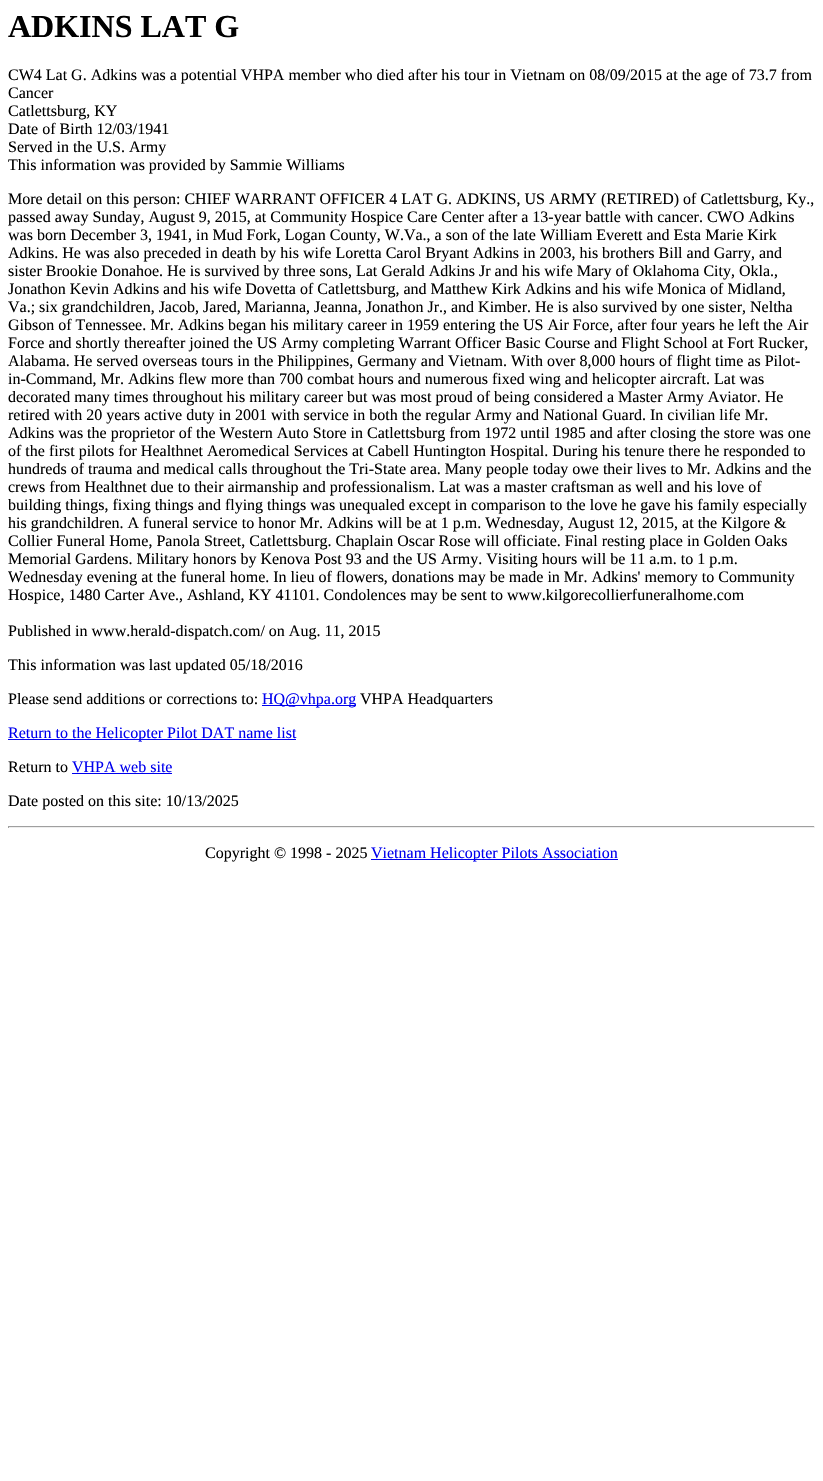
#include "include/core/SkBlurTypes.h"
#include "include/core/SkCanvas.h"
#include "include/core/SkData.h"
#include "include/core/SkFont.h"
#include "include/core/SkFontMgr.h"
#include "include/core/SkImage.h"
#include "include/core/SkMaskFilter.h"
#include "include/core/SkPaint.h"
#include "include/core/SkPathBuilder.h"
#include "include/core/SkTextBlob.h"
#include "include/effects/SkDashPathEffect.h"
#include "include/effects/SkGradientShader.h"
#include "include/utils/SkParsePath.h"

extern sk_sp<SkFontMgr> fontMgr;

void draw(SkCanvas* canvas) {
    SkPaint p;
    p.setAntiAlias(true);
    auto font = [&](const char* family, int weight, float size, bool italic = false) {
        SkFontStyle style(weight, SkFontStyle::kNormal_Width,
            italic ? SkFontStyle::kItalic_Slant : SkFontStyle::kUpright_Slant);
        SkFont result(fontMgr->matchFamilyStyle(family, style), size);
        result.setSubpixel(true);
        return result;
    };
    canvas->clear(0xFFFFFFFF);
    auto font1 = font("Liberation Serif", 700, 32);
    p.setColor(0xFF000000);
    canvas->drawString("ADKINS LAT G", 8, 37, font1, p);
    auto font2 = font("Liberation Serif", 400, 16);
    {
        const struct { const char* s; float x, y; } items[] = {
            {"CW4 Lat G. Adkins was a potential VHPA member who died after his tour in Vietnam on 08/09/2015 at the age of 73.7 from", 8, 80},
            {"Cancer", 8, 98},
            {"Catlettsburg, KY", 8, 116},
            {"Date of Birth 12/03/1941", 8, 134},
            {"Served in the U.S. Army", 8, 152},
            {"This information was provided by Sammie Williams", 8, 170},
            {"More detail on this person: CHIEF WARRANT OFFICER 4 LAT G. ADKINS, US ARMY (RETIRED) of Catlettsburg, Ky.,", 8, 204},
            {"passed away Sunday, August 9, 2015, at Community Hospice Care Center after a 13-year battle with cancer. CWO Adkins", 8, 222},
            {"was born December 3, 1941, in Mud Fork, Logan County, W.Va., a son of the late William Everett and Esta Marie Kirk", 8, 240},
            {"Adkins. He was also preceded in death by his wife Loretta Carol Bryant Adkins in 2003, his brothers Bill and Garry, and", 8, 258},
            {"sister Brookie Donahoe. He is survived by three sons, Lat Gerald Adkins Jr and his wife Mary of Oklahoma City, Okla.,", 8, 276},
            {"Jonathon Kevin Adkins and his wife Dovetta of Catlettsburg, and Matthew Kirk Adkins and his wife Monica of Midland,", 8, 294},
            {"Va.; six grandchildren, Jacob, Jared, Marianna, Jeanna, Jonathon Jr., and Kimber. He is also survived by one sister, Neltha", 8, 312},
            {"Gibson of Tennessee. Mr. Adkins began his military career in 1959 entering the US Air Force, after four years he left the Air", 8, 330},
            {"Force and shortly thereafter joined the US Army completing Warrant Officer Basic Course and Flight School at Fort Rucker,", 8, 348},
            {"Alabama. He served overseas tours in the Philippines, Germany and Vietnam. With over 8,000 hours of flight time as Pilot-", 8, 366},
            {"in-Command, Mr. Adkins flew more than 700 combat hours and numerous fixed wing and helicopter aircraft. Lat was", 8, 384},
            {"decorated many times throughout his military career but was most proud of being considered a Master Army Aviator. He", 8, 402},
            {"retired with 20 years active duty in 2001 with service in both the regular Army and National Guard. In civilian life Mr.", 8, 420},
            {"Adkins was the proprietor of the Western Auto Store in Catlettsburg from 1972 until 1985 and after closing the store was one", 8, 438},
            {"of the first pilots for Healthnet Aeromedical Services at Cabell Huntington Hospital. During his tenure there he responded to", 8, 456},
            {"hundreds of trauma and medical calls throughout the Tri-State area. Many people today owe their lives to Mr. Adkins and the", 8, 474},
            {"crews from Healthnet due to their airmanship and professionalism. Lat was a master craftsman as well and his love of", 8, 492},
            {"building things, fixing things and flying things was unequaled except in comparison to the love he gave his family especially", 8, 510},
            {"his grandchildren. A funeral service to honor Mr. Adkins will be at 1 p.m. Wednesday, August 12, 2015, at the Kilgore &", 8, 528},
            {"Collier Funeral Home, Panola Street, Catlettsburg. Chaplain Oscar Rose will officiate. Final resting place in Golden Oaks", 8, 546},
            {"Memorial Gardens. Military honors by Kenova Post 93 and the US Army. Visiting hours will be 11 a.m. to 1 p.m.", 8, 564},
            {"Wednesday evening at the funeral home. In lieu of flowers, donations may be made in Mr. Adkins' memory to Community", 8, 582},
            {"Hospice, 1480 Carter Ave., Ashland, KY 41101. Condolences may be sent to www.kilgorecollierfuneralhome.com", 8, 600},
            {"Published in www.herald-dispatch.com/ on Aug. 11, 2015", 8, 636},
            {"This information was last updated 05/18/2016", 8, 670},
            {"Please send additions or corrections to:", 8, 704},
        };
        for (auto [s, x, y] : items) {
            canvas->drawString(s, x, y, font2, p);
        }
    }
    p.setColor(0xFF0000EE);
    canvas->drawRect(SkRect::MakeLTRB(262, 705, 356, 706), p);
    canvas->drawString("HQ@vhpa.org", 262, 704, font2, p);
    p.setColor(0xFF000000);
    canvas->drawString("VHPA Headquarters", 360, 704, font2, p);
    p.setColor(0xFF0000EE);
    canvas->drawRect(SkRect::MakeLTRB(8, 739, 296, 740), p);
    canvas->drawString("Return to the Helicopter Pilot DAT name list", 8, 738, font2, p);
    p.setColor(0xFF000000);
    canvas->drawString("Return to", 8, 772, font2, p);
    p.setColor(0xFF0000EE);
    canvas->drawString("VHPA web site", 72, 772, font2, p);
    canvas->drawRect(SkRect::MakeLTRB(72, 773, 172, 774), p);
    p.setColor(0xFF000000);
    canvas->drawString("Date posted on this site: 10/13/2025", 8, 806, font2, p);
    {
        const struct { float l, t, r, b; SkColor color; } items[] = {
            {8, 826, 815, 827, 0xFF9F9F9F},
            {814, 826, 815, 828, 0xFFEEEEEE},
            {8, 827, 815, 828, 0xFFEEEEEE},
            {8, 826, 9, 828, 0xFF9F9F9F},
        };
        for (auto [l, t, r, b, color] : items) {
            p.setColor(color);
            canvas->drawRect(SkRect::MakeLTRB(l, t, r, b), p);
        }
    }
    p.setColor(0xFF000000);
    canvas->drawString("Copyright © 1998 - 2025", 205, 858, font2, p);
    p.setColor(0xFF0000EE);
    canvas->drawRect(SkRect::MakeLTRB(371, 859, 618, 860), p);
    canvas->drawString("Vietnam Helicopter Pilots Association", 371, 858, font2, p);
}
